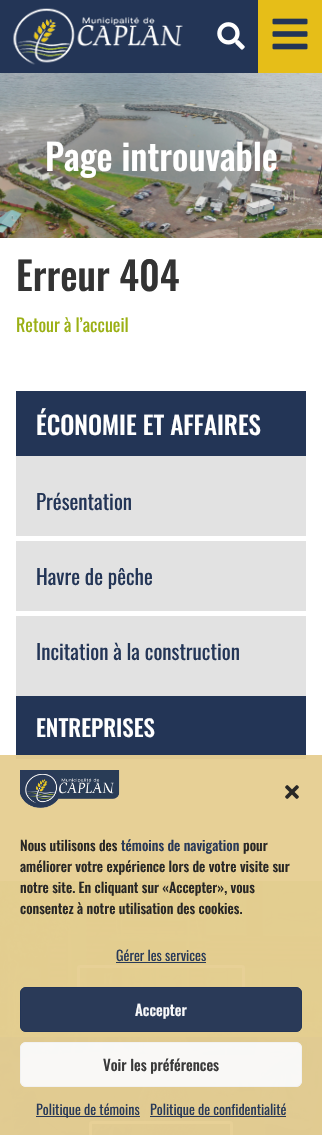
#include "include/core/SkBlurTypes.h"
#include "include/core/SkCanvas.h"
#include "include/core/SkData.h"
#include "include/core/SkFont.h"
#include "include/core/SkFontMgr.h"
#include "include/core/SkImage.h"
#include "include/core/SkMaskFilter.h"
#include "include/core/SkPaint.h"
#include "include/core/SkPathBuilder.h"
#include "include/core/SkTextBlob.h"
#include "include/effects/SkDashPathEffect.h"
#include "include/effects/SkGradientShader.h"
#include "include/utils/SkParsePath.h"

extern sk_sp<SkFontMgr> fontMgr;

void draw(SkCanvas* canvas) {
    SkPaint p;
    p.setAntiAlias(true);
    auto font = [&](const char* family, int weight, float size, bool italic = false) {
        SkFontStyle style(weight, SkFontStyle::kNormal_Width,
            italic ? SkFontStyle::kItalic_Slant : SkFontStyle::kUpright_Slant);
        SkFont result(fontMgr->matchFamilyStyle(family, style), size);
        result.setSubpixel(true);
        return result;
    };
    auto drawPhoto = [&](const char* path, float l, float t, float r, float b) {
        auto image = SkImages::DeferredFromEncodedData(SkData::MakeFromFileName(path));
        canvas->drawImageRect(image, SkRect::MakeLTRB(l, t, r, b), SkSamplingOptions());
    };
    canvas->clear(0xFFFFFFFF);
    p.setColor(0xFFE7D096);
    canvas->drawRect(SkRect::MakeLTRB(0, 755, 322, 881), p);
    p.setColor(0xFF233556);
    canvas->drawRect(SkRect::MakeLTRB(0, 0, 258, 73), p);
    drawPhoto("media/1.png", 13, 8, 183, 65);
    p.setColor(0xFFE6BE18);
    canvas->drawRect(SkRect::MakeLTRB(258, 0, 322, 73), p);
    drawPhoto("media/2.png", 272, 18, 308, 50);
    drawPhoto("media/3.png", 217, 22, 245, 50);
    drawPhoto("media/4.png", 0, 73, 322, 238);
    auto font1 = font("Oswald", 500, 36);
    p.setColor(0xFFFFFFFF);
    canvas->drawString("Page introuvable", 45, 171, font1, p);
    auto font2 = font("Oswald", 500, 39);
    p.setColor(0xFF333333);
    canvas->drawString("Erreur 404", 16, 291, font2, p);
    auto font3 = font("Oswald", 400, 18);
    p.setColor(0xFF9BB015);
    canvas->drawString("Retour à l’accueil", 16, 332, font3, p);
    p.setColor(0xFF233556);
    canvas->drawRect(SkRect::MakeLTRB(16, 391, 306, 456), p);
    auto font4 = font("Oswald", 500, 25);
    p.setColor(0xFFFFFFFF);
    canvas->drawString("ÉCONOMIE ET AFFAIRES", 36, 435, font4, p);
    p.setColor(0xFFE2E2E2);
    canvas->drawRect(SkRect::MakeLTRB(16, 456, 306, 696), p);
    p.setColor(0xFFFFFFFF);
    canvas->drawRect(SkRect::MakeLTRB(16, 536, 306, 541), p);
    auto font5 = font("Oswald", 400, 21);
    p.setColor(0xFF233556);
    canvas->drawString("Présentation", 36, 510, font5, p);
    p.setColor(0xFFFFFFFF);
    canvas->drawRect(SkRect::MakeLTRB(16, 611, 306, 616), p);
    p.setColor(0xFF233556);
    canvas->drawString("Havre de pêche", 36, 585, font5, p);
    canvas->drawString("Incitation à la construction", 36, 660, font5, p);
    canvas->drawRect(SkRect::MakeLTRB(16, 696, 306, 755), p);
    p.setColor(0xFFE0CA91);
    canvas->drawRect(SkRect::MakeLTRB(16, 755, 306, 759), p);
    auto font6 = font("Oswald", 500, 23);
    p.setColor(0xFFFFFFFF);
    canvas->drawString("ENTREPRISES", 36, 737, font6, p);
    drawPhoto("media/5.png", 20, 770, 120, 808);
    drawPhoto("media/6.png", 285, 785, 299, 799);
    auto font7 = font("Oswald", 500, 14);
    p.setColor(0xFF282725);
    canvas->drawString("Nous utilisons des", 20, 851, font7, p);
    p.setColor(0xFF293A58);
    canvas->drawString("témoins de navigation", 121, 851, font7, p);
    p.setColor(0xFF282725);
    canvas->drawString("pour", 243, 851, font7, p);
    canvas->drawString("améliorer votre expérience lors de votre visite sur", 20, 872, font7, p);
    drawPhoto("media/7.png", 0, 881, 322, 1037);
    canvas->drawString("notre site. En cliquant sur «Accepter», vous", 20, 893, font7, p);
    canvas->drawString("consentez à notre utilisation des cookies.", 20, 914, font7, p);
    auto font8 = font("Oswald", 400, 14);
    p.setColor(0xFF293A58);
    canvas->drawString("Gérer les services", 116, 961, font8, p);
    canvas->drawRect(SkRect::MakeLTRB(116, 962, 206, 963), p);
    p.setStyle(SkPaint::kStroke_Style);
    p.setStrokeWidth(3);
    p.setColor(0xFFE7D096);
    canvas->drawRoundRect(SkRect::MakeLTRB(78.5f, 966.5f, 243.5f, 1003.5f), 1.5f, 1.5f, p);
    p.setStyle(SkPaint::kFill_Style);
    p.setColor(0xF7233556);
    canvas->drawRoundRect(SkRect::MakeLTRB(20, 987, 302, 1032), 6, 6, p);
    p.setStyle(SkPaint::kStroke_Style);
    p.setStrokeWidth(1);
    canvas->drawRoundRect(SkRect::MakeLTRB(20.5f, 987.5f, 301.5f, 1031.5f), 5.5f, 5.5f, p);
    auto font9 = font("Oswald", 500, 15);
    p.setStyle(SkPaint::kFill_Style);
    p.setColor(0xFFF9F9FA);
    canvas->drawString("Accepter", 135, 1016, font9, p);
    drawPhoto("media/8.png", 0, 1037, 322, 1135);
    p.setColor(0xF7F9F9F9);
    canvas->drawRoundRect(SkRect::MakeLTRB(20, 1042, 302, 1087), 6, 6, p);
    p.setStyle(SkPaint::kStroke_Style);
    p.setColor(0xF7F2F2F2);
    canvas->drawRoundRect(SkRect::MakeLTRB(20.5f, 1042.5f, 301.5f, 1086.5f), 5.5f, 5.5f, p);
    p.setStyle(SkPaint::kFill_Style);
    p.setColor(0xFF393939);
    canvas->drawString("Voir les préférences", 103, 1071, font9, p);
    p.setColor(0xFF293958);
    canvas->drawRect(SkRect::MakeLTRB(36, 1116, 140, 1117), p);
    p.setColor(0xFF293A58);
    canvas->drawString("Politique de témoins", 36, 1115, font8, p);
    p.setColor(0xFF293958);
    canvas->drawRect(SkRect::MakeLTRB(150, 1116, 286, 1117), p);
    p.setColor(0xFF293A58);
    canvas->drawString("Politique de confidentialité", 150, 1115, font8, p);
    p.setStyle(SkPaint::kStroke_Style);
    p.setStrokeWidth(3);
    p.setColor(0xFFE7D096);
    canvas->drawRoundRect(SkRect::MakeLTRB(90.5f, 1122.5f, 231.5f, 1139.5f), 1.5f, 1.5f, p);
}
